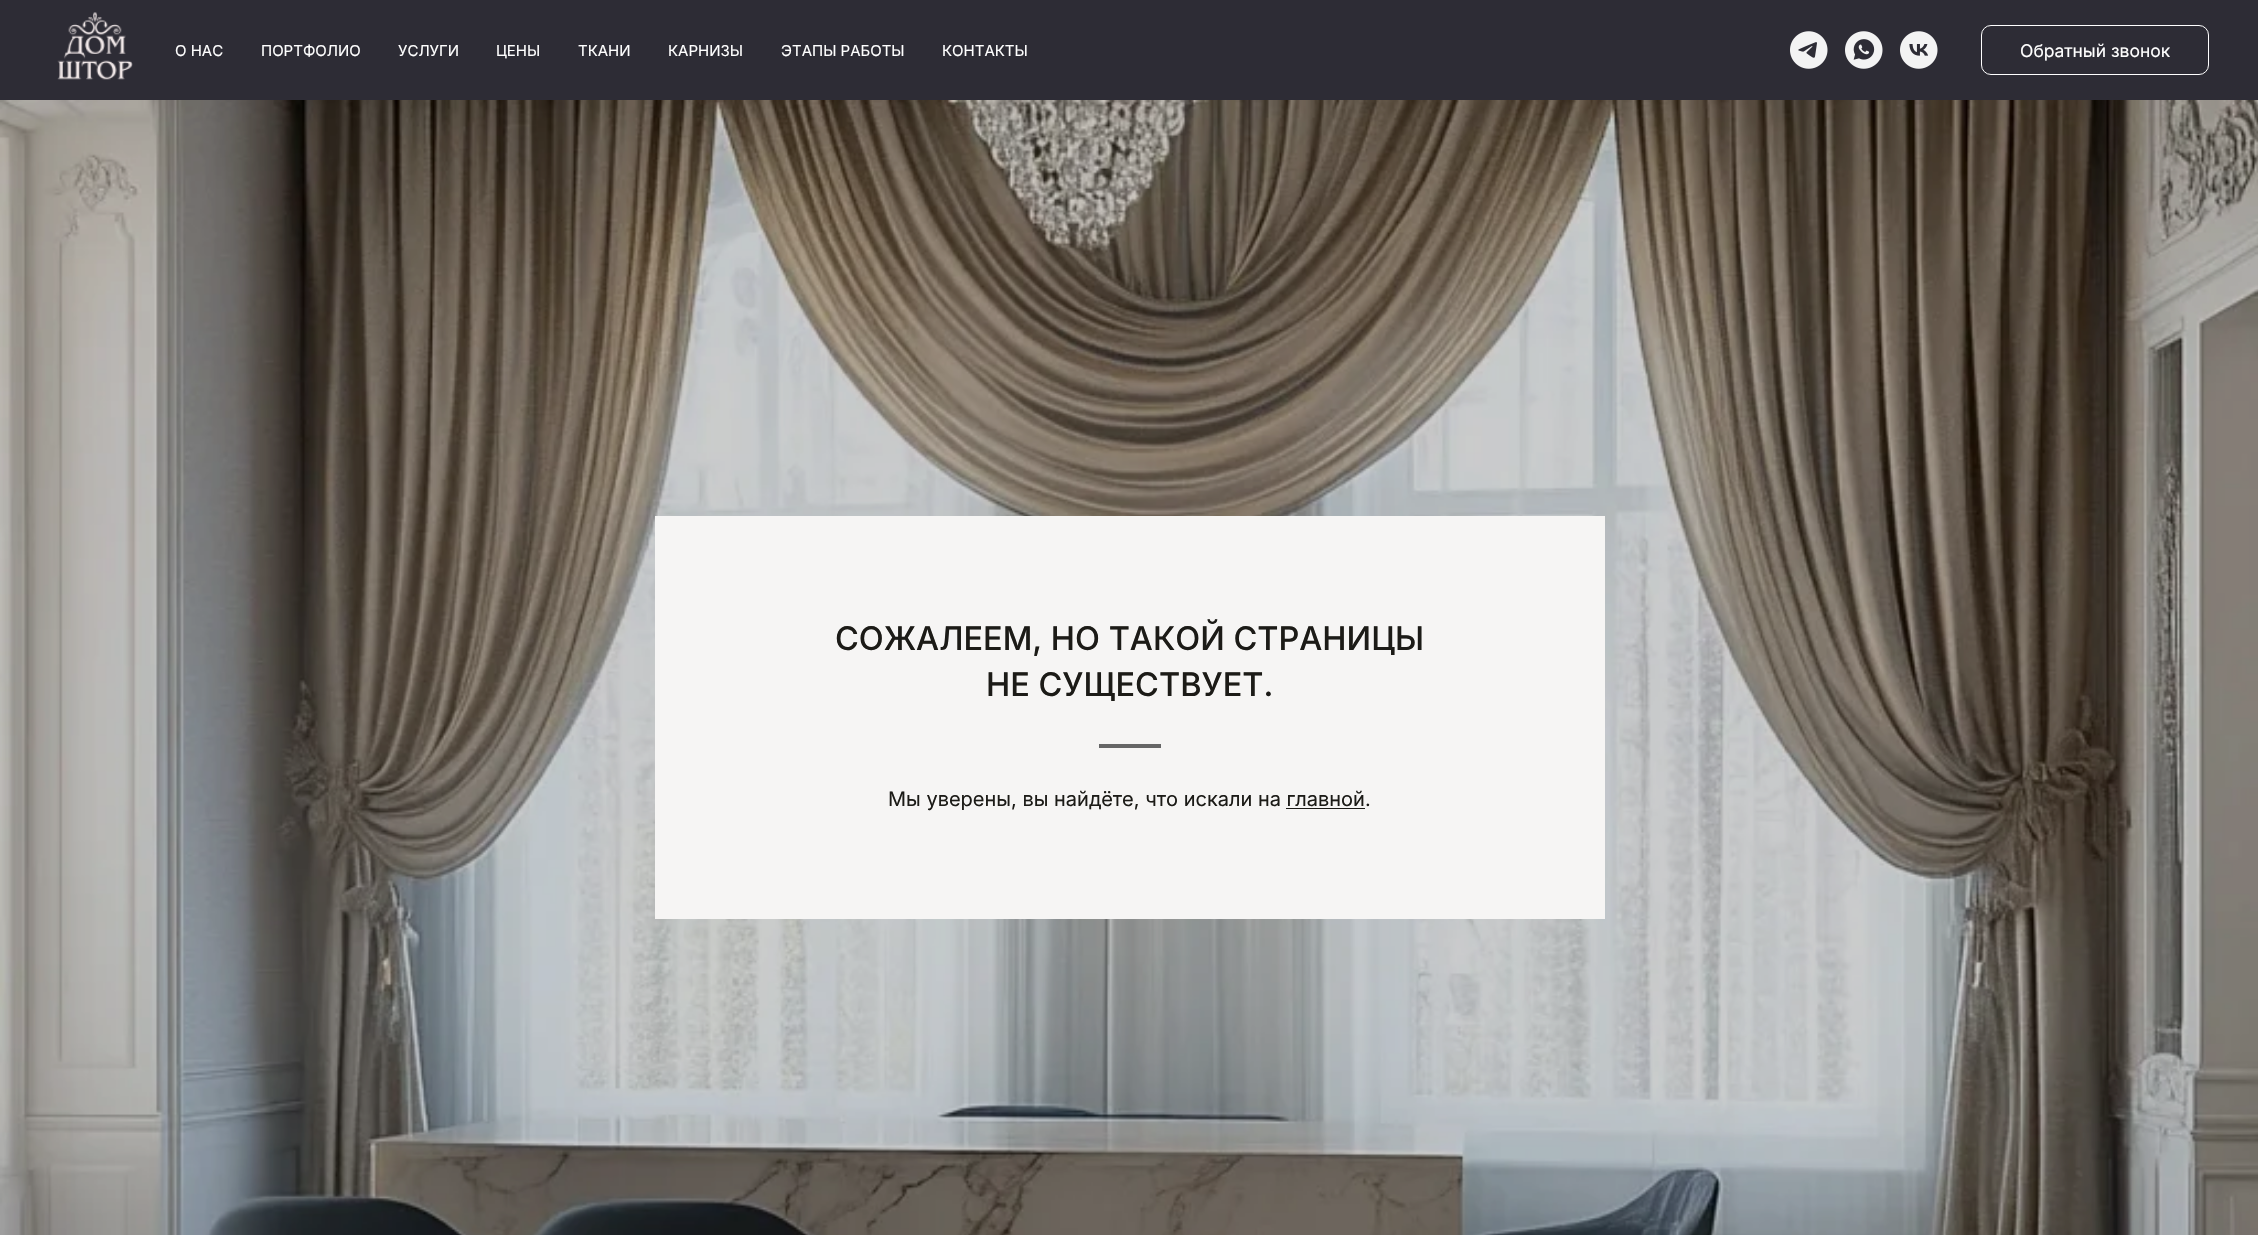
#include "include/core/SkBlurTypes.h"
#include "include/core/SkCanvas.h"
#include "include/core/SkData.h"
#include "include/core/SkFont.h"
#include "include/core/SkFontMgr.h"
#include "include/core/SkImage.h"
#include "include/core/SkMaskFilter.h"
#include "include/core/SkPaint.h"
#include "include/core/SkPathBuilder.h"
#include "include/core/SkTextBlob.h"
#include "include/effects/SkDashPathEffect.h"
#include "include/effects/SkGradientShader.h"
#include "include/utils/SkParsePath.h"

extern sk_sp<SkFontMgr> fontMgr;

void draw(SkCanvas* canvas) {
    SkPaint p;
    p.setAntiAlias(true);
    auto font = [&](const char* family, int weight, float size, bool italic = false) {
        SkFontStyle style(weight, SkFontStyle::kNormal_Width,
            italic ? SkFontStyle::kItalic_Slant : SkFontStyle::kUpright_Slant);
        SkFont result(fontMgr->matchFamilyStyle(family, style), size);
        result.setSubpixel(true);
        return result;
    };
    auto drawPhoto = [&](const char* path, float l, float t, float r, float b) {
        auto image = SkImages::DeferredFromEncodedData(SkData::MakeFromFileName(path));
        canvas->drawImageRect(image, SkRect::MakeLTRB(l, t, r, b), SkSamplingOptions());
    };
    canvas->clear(0xFF2D2C35);
    drawPhoto("media/1.png", 57, 12, 133, 80);
    auto font1 = font("Inter", 400, 15);
    p.setColor(0xFFFFFFFF);
    {
        const struct { const char* s; float x, y; } items[] = {
            {"О НАС", 175, 56},
            {"ПОРТФОЛИО", 261, 56},
            {"УСЛУГИ", 398, 56},
            {"ЦЕНЫ", 496, 56},
            {"ТКАНИ", 578, 56},
            {"КАРНИЗЫ", 668, 56},
            {"ЭТАПЫ РАБОТЫ", 781, 56},
            {"КОНТАКТЫ", 942, 56},
        };
        for (auto [s, x, y] : items) {
            canvas->drawString(s, x, y, font1, p);
        }
    }
    drawPhoto("media/2.png", 1790, 31, 1828, 69);
    drawPhoto("media/3.png", 1845, 31, 1883, 69);
    drawPhoto("media/4.png", 1900, 31, 1938, 69);
    p.setStyle(SkPaint::kStroke_Style);
    p.setStrokeWidth(1);
    canvas->drawRoundRect(SkRect::MakeLTRB(1981.5f, 25.5f, 2208.5f, 74.5f), 9.5f, 9.5f, p);
    auto font2 = font("Inter", 400, 17.5f);
    p.setStyle(SkPaint::kFill_Style);
    canvas->drawString("Обратный звонок", 2020, 57, font2, p);
    drawPhoto("media/5.png", 0, 100, 2258, 1235);
    p.setColor(0xFFF6F5F4);
    canvas->drawRect(SkRect::MakeLTRB(655, 516, 1605, 919), p);
    auto font3 = font("Inter", 500, 32.5f);
    p.setColor(0xFF1C1B17);
    canvas->drawString("СОЖАЛЕЕМ, НО ТАКОЙ СТРАНИЦЫ", 835, 650, font3, p);
    canvas->drawString("НЕ СУЩЕСТВУЕТ.", 986, 696, font3, p);
    p.setColor(0xFF666666);
    canvas->drawRect(SkRect::MakeLTRB(1099, 744, 1161, 748), p);
    auto font4 = font("Inter", 400, 20);
    p.setColor(0xFF1C1B17);
    canvas->drawString("Мы уверены, вы найдёте, что искали на главной.", 888, 806, font4, p);
    canvas->drawRect(SkRect::MakeLTRB(1286, 808, 1365, 809), p);
}
